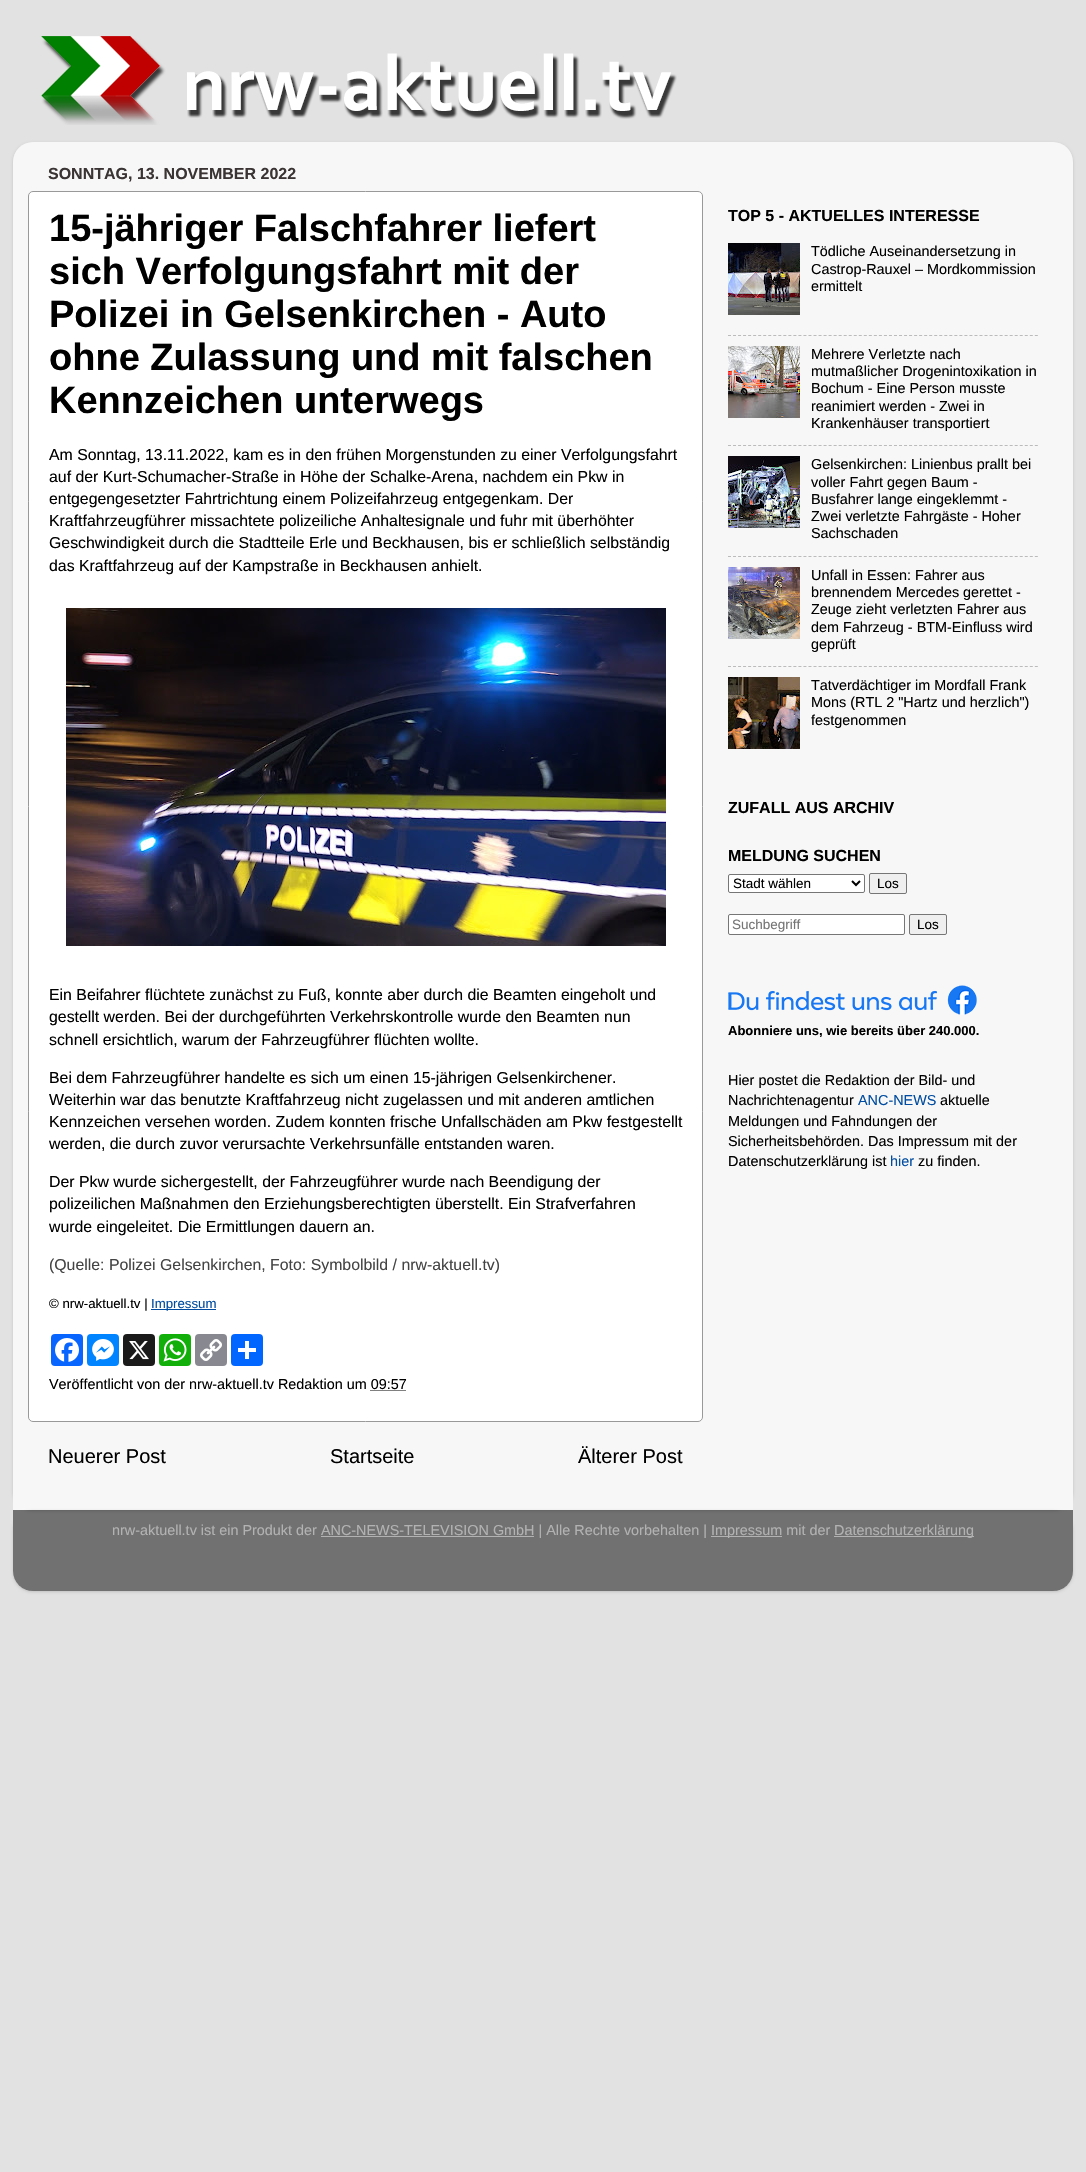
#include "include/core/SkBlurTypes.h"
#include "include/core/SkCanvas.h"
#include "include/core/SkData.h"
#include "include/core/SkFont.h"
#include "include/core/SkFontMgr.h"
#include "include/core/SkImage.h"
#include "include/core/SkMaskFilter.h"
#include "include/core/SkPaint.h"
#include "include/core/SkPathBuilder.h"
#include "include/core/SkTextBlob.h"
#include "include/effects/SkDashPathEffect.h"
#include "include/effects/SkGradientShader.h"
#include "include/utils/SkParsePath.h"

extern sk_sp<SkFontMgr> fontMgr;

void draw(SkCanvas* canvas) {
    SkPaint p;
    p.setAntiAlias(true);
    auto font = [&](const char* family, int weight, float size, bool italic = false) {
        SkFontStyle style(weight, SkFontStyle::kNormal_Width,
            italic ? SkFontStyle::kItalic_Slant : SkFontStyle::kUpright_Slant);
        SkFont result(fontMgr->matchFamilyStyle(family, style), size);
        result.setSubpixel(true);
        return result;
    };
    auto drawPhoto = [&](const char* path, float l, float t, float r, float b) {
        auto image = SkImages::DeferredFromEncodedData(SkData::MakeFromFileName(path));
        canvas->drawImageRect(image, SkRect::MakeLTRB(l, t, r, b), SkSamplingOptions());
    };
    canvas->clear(0xFFE2E2E2);
    drawPhoto("media/1.png", 41, 36, 677, 125);
    canvas->save();
    canvas->clipPath(SkPathBuilder(SkPathFillType::kEvenOdd).moveTo(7, 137).lineTo(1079, 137).lineTo(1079, 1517).lineTo(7, 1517).close().moveTo(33, 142).lineTo(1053, 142).cubicTo(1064, 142, 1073, 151, 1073, 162).lineTo(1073, 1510).lineTo(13, 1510).lineTo(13, 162).cubicTo(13, 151, 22, 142, 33, 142).close().detach(), true);
    p.setColor(0x26000000);
    p.setMaskFilter(SkMaskFilter::MakeBlur(kNormal_SkBlurStyle, 1.5f));
    canvas->drawRoundRect(SkRect::MakeLTRB(13, 143, 1073, 1511), 20, 20, p);
    p.setMaskFilter(nullptr);
    canvas->restore();
    drawPhoto("media/2.png", 13, 142, 1073, 1510);
    auto font1 = font("Liberation Sans", 700, 16);
    p.setColor(0xFF3B3434);
    canvas->drawString("SONNTAG, 13. NOVEMBER 2022", 48, 179, font1, p);
    p.setColor(0xFFFFFFFF);
    canvas->drawRoundRect(SkRect::MakeLTRB(28.5f, 191.5f, 702.5f, 1421.5f), 4.5f, 4.5f, p);
    p.setStyle(SkPaint::kStroke_Style);
    p.setStrokeWidth(1);
    p.setColor(0xFF999999);
    canvas->drawRoundRect(SkRect::MakeLTRB(28.5f, 191.5f, 702.5f, 1421.5f), 4.5f, 4.5f, p);
    auto font2 = font("Liberation Sans", 700, 38);
    p.setStyle(SkPaint::kFill_Style);
    p.setColor(0xFF000000);
    {
        const struct { const char* s; float x, y; } items[] = {
            {"15-jähriger Falschfahrer liefert", 49, 241},
            {"sich Verfolgungsfahrt mit der", 49, 284},
            {"Polizei in Gelsenkirchen - Auto", 49, 327},
            {"ohne Zulassung und mit falschen", 49, 370},
            {"Kennzeichen unterwegs", 49, 413},
        };
        for (auto [s, x, y] : items) {
            canvas->drawString(s, x, y, font2, p);
        }
    }
    auto font3 = font("Liberation Sans", 400, 15.85f);
    {
        const struct { const char* s; float x, y; } items[] = {
            {"Am Sonntag, 13.11.2022, kam es in den frühen Morgenstunden zu einer Verfolgungsfahrt", 49, 460},
            {"auf der Kurt-Schumacher-Straße in Höhe der Schalke-Arena, nachdem ein Pkw in", 49, 482},
            {"entgegengesetzter Fahrtrichtung einem Polizeifahrzeug entgegenkam. Der", 49, 504},
            {"Kraftfahrzeugführer missachtete polizeiliche Anhaltesignale und fuhr mit überhöhter", 49, 526},
            {"Geschwindigkeit durch die Stadtteile Erle und Beckhausen, bis er schließlich selbständig", 49, 548},
            {"das Kraftfahrzeug auf der Kampstraße in Beckhausen anhielt.", 49, 571},
        };
        for (auto [s, x, y] : items) {
            canvas->drawString(s, x, y, font3, p);
        }
    }
    drawPhoto("media/3.png", 66, 608, 666, 946);
    {
        const struct { const char* s; float x, y; } items[] = {
            {"Ein Beifahrer flüchtete zunächst zu Fuß, konnte aber durch die Beamten eingeholt und", 49, 1000},
            {"gestellt werden. Bei der durchgeführten Verkehrskontrolle wurde den Beamten nun", 49, 1022},
            {"schnell ersichtlich, warum der Fahrzeugführer flüchten wollte.", 49, 1045},
            {"Bei dem Fahrzeugführer handelte es sich um einen 15-jährigen Gelsenkirchener.", 49, 1083},
            {"Weiterhin war das benutzte Kraftfahrzeug nicht zugelassen und mit anderen amtlichen", 49, 1105},
            {"Kennzeichen versehen worden. Zudem konnten frische Unfallschäden am Pkw festgestellt", 49, 1127},
            {"werden, die durch zuvor verursachte Verkehrsunfälle entstanden waren.", 49, 1149},
            {"Der Pkw wurde sichergestellt, der Fahrzeugführer wurde nach Beendigung der", 49, 1187},
            {"polizeilichen Maßnahmen den Erziehungsberechtigten überstellt. Ein Strafverfahren", 49, 1209},
            {"wurde eingeleitet. Die Ermittlungen dauern an.", 49, 1232},
        };
        for (auto [s, x, y] : items) {
            canvas->drawString(s, x, y, font3, p);
        }
    }
    p.setColor(0xFF444444);
    canvas->drawString("(Quelle: Polizei Gelsenkirchen, Foto: Symbolbild / nrw-aktuell.tv)", 49, 1270, font3, p);
    auto font4 = font("Liberation Sans", 400, 13.25f);
    p.setColor(0xFF000000);
    canvas->drawString("© nrw-aktuell.tv |", 49, 1308, font4, p);
    p.setColor(0xFF004CA0);
    canvas->drawRect(SkRect::MakeLTRB(151, 1309, 216, 1310), p);
    canvas->drawString("Impressum", 151, 1308, font4, p);
    p.setColor(0xFF0866FF);
    canvas->drawRoundRect(SkRect::MakeLTRB(51, 1334, 83, 1366), 4, 4, p);
    drawPhoto("media/4.png", 55, 1338, 79, 1362);
    p.setColor(0xFF0084FF);
    canvas->drawRoundRect(SkRect::MakeLTRB(87, 1334, 119, 1366), 4, 4, p);
    drawPhoto("media/5.png", 92, 1339, 114, 1361);
    p.setColor(0xFF1A1A1A);
    canvas->drawRoundRect(SkRect::MakeLTRB(123, 1334, 155, 1366), 4, 4, p);
    drawPhoto("media/6.png", 129, 1341, 149, 1360);
    p.setColor(0xFF12AF0A);
    canvas->drawRoundRect(SkRect::MakeLTRB(159, 1334, 191, 1366), 4, 4, p);
    drawPhoto("media/7.png", 163, 1338, 187, 1362);
    p.setColor(0xFF888990);
    canvas->drawRoundRect(SkRect::MakeLTRB(195, 1334, 227, 1366), 4, 4, p);
    drawPhoto("media/8.png", 200, 1339, 222, 1361);
    p.setColor(0xFF0166FF);
    canvas->drawRoundRect(SkRect::MakeLTRB(231, 1334, 263, 1366), 4, 4, p);
    p.setColor(0xFFFFFFFF);
    canvas->drawRect(SkRect::MakeLTRB(245, 1341, 249, 1359), p);
    canvas->drawRect(SkRect::MakeLTRB(238, 1348, 256, 1352), p);
    auto font5 = font("Liberation Sans", 400, 14.4f);
    p.setColor(0xFF000000);
    canvas->drawString("Veröffentlicht von der nrw-aktuell.tv Redaktion um 09:57", 49, 1389, font5, p);
    p.setStyle(SkPaint::kStroke_Style);
    p.setPathEffect(SkDashPathEffect::Make({{1, 1}}, 0));
    canvas->drawPath(SkPathBuilder().moveTo(370.5f, 1390.5f).lineTo(406.5f, 1390.5f).detach(), p);
    p.setPathEffect(nullptr);
    auto font6 = font("Liberation Sans", 400, 20);
    p.setStyle(SkPaint::kFill_Style);
    {
        const struct { const char* s; float x, y; } items[] = {
            {"Neuerer Post", 48, 1463},
            {"Startseite", 330, 1463},
            {"Älterer Post", 578, 1463},
        };
        for (auto [s, x, y] : items) {
            canvas->drawString(s, x, y, font6, p);
        }
    }
    canvas->drawString("TOP 5 - AKTUELLES INTERESSE", 728, 221, font1, p);
    drawPhoto("media/9.png", 728, 243, 800, 315);
    {
        const struct { const char* s; float x, y; } items[] = {
            {"Tödliche Auseinandersetzung in", 811, 256},
            {"Castrop-Rauxel – Mordkommission", 811, 274},
            {"ermittelt", 811, 291},
        };
        for (auto [s, x, y] : items) {
            canvas->drawString(s, x, y, font5, p);
        }
    }
    p.setStyle(SkPaint::kStroke_Style);
    p.setColor(0xFFBBBBBB);
    p.setPathEffect(SkDashPathEffect::Make({{3, 2.03f}}, 0));
    canvas->drawPath(SkPathBuilder().moveTo(728, 335.5f).lineTo(1038, 335.5f).detach(), p);
    p.setPathEffect(nullptr);
    drawPhoto("media/10.png", 728, 346, 800, 418);
    p.setStyle(SkPaint::kFill_Style);
    p.setColor(0xFF000000);
    {
        const struct { const char* s; float x, y; } items[] = {
            {"Mehrere Verletzte nach", 811, 359},
            {"mutmaßlicher Drogenintoxikation in", 811, 376},
            {"Bochum - Eine Person musste", 811, 393},
            {"reanimiert werden - Zwei in", 811, 411},
            {"Krankenhäuser transportiert", 811, 428},
        };
        for (auto [s, x, y] : items) {
            canvas->drawString(s, x, y, font5, p);
        }
    }
    p.setStyle(SkPaint::kStroke_Style);
    p.setColor(0xFFBBBBBB);
    p.setPathEffect(SkDashPathEffect::Make({{3, 2.03f}}, 0));
    canvas->drawPath(SkPathBuilder().moveTo(728, 445.5f).lineTo(1038, 445.5f).detach(), p);
    p.setPathEffect(nullptr);
    drawPhoto("media/11.png", 728, 456, 800, 528);
    p.setStyle(SkPaint::kFill_Style);
    p.setColor(0xFF000000);
    {
        const struct { const char* s; float x, y; } items[] = {
            {"Gelsenkirchen: Linienbus prallt bei", 811, 469},
            {"voller Fahrt gegen Baum -", 811, 487},
            {"Busfahrer lange eingeklemmt -", 811, 504},
            {"Zwei verletzte Fahrgäste - Hoher", 811, 521},
            {"Sachschaden", 811, 538},
        };
        for (auto [s, x, y] : items) {
            canvas->drawString(s, x, y, font5, p);
        }
    }
    p.setStyle(SkPaint::kStroke_Style);
    p.setColor(0xFFBBBBBB);
    p.setPathEffect(SkDashPathEffect::Make({{3, 2.03f}}, 0));
    canvas->drawPath(SkPathBuilder().moveTo(728, 556.5f).lineTo(1038, 556.5f).detach(), p);
    p.setPathEffect(nullptr);
    drawPhoto("media/12.png", 728, 567, 800, 639);
    p.setStyle(SkPaint::kFill_Style);
    p.setColor(0xFF000000);
    {
        const struct { const char* s; float x, y; } items[] = {
            {"Unfall in Essen: Fahrer aus", 811, 580},
            {"brennendem Mercedes gerettet -", 811, 597},
            {"Zeuge zieht verletzten Fahrer aus", 811, 614},
            {"dem Fahrzeug - BTM-Einfluss wird", 811, 632},
            {"geprüft", 811, 649},
        };
        for (auto [s, x, y] : items) {
            canvas->drawString(s, x, y, font5, p);
        }
    }
    p.setStyle(SkPaint::kStroke_Style);
    p.setColor(0xFFBBBBBB);
    p.setPathEffect(SkDashPathEffect::Make({{3, 2.03f}}, 0));
    canvas->drawPath(SkPathBuilder().moveTo(728, 666.5f).lineTo(1038, 666.5f).detach(), p);
    p.setPathEffect(nullptr);
    drawPhoto("media/13.png", 728, 677, 800, 749);
    p.setStyle(SkPaint::kFill_Style);
    p.setColor(0xFF000000);
    {
        const struct { const char* s; float x, y; } items[] = {
            {"Tatverdächtiger im Mordfall Frank", 811, 690},
            {"Mons (RTL 2 \"Hartz und herzlich\")", 811, 707},
            {"festgenommen", 811, 725},
        };
        for (auto [s, x, y] : items) {
            canvas->drawString(s, x, y, font5, p);
        }
    }
    canvas->drawString("ZUFALL AUS ARCHIV", 728, 813, font1, p);
    canvas->drawString("MELDUNG SUCHEN", 728, 861, font1, p);
    p.setColor(0xFFFFFFFF);
    canvas->drawRoundRect(SkRect::MakeLTRB(728.5f, 874.5f, 864.5f, 892.5f), 1.5f, 1.5f, p);
    p.setStyle(SkPaint::kStroke_Style);
    p.setColor(0xFF767676);
    canvas->drawRoundRect(SkRect::MakeLTRB(728.5f, 874.5f, 864.5f, 892.5f), 1.5f, 1.5f, p);
    p.setStrokeWidth(2);
    p.setColor(0xFF000000);
    canvas->drawPath(SkPathBuilder().moveTo(852, 881).lineTo(856, 885).lineTo(860, 881).detach(), p);
    auto font7 = font("Liberation Sans", 400, 13.5f);
    p.setStyle(SkPaint::kFill_Style);
    canvas->drawString("Stadt wählen", 733, 888, font7, p);
    p.setColor(0xFFEFEFEF);
    canvas->drawRoundRect(SkRect::MakeLTRB(869.5f, 873.5f, 906.5f, 893.5f), 1.5f, 1.5f, p);
    p.setStyle(SkPaint::kStroke_Style);
    p.setStrokeWidth(1);
    p.setColor(0xFF767676);
    canvas->drawRoundRect(SkRect::MakeLTRB(869.5f, 873.5f, 906.5f, 893.5f), 1.5f, 1.5f, p);
    p.setStyle(SkPaint::kFill_Style);
    p.setColor(0xFF000000);
    canvas->drawString("Los", 877, 888, font7, p);
    p.setColor(0xFFFFFFFF);
    canvas->drawRoundRect(SkRect::MakeLTRB(728.5f, 914.5f, 904.5f, 934.5f), 1.5f, 1.5f, p);
    p.setStyle(SkPaint::kStroke_Style);
    p.setColor(0xFF767676);
    canvas->drawRoundRect(SkRect::MakeLTRB(728.5f, 914.5f, 904.5f, 934.5f), 1.5f, 1.5f, p);
    p.setStyle(SkPaint::kFill_Style);
    p.setColor(0xFF757575);
    canvas->drawString("Suchbegriff", 732, 929, font7, p);
    p.setColor(0xFFEFEFEF);
    canvas->drawRoundRect(SkRect::MakeLTRB(909.5f, 914.5f, 946.5f, 934.5f), 1.5f, 1.5f, p);
    p.setStyle(SkPaint::kStroke_Style);
    p.setColor(0xFF767676);
    canvas->drawRoundRect(SkRect::MakeLTRB(909.5f, 914.5f, 946.5f, 934.5f), 1.5f, 1.5f, p);
    p.setStyle(SkPaint::kFill_Style);
    p.setColor(0xFF000000);
    canvas->drawString("Los", 917, 929, font7, p);
    drawPhoto("media/14.png", 728, 985, 977, 1015);
    auto font8 = font("Liberation Sans", 700, 13);
    canvas->drawString("Abonniere uns, wie bereits über 240.000.", 728, 1035, font8, p);
    canvas->drawString("Hier postet die Redaktion der Bild- und", 728, 1085, font5, p);
    canvas->drawString("Nachrichtenagentur", 728, 1105, font5, p);
    p.setColor(0xFF004CA0);
    canvas->drawString("ANC-NEWS", 858, 1105, font5, p);
    p.setColor(0xFF000000);
    {
        const struct { const char* s; float x, y; } items[] = {
            {"aktuelle", 940, 1105},
            {"Meldungen und Fahndungen der", 728, 1126},
            {"Sicherheitsbehörden. Das Impressum mit der", 728, 1146},
            {"Datenschutzerklärung ist", 728, 1166},
        };
        for (auto [s, x, y] : items) {
            canvas->drawString(s, x, y, font5, p);
        }
    }
    p.setColor(0xFF004CA0);
    canvas->drawString("hier", 890, 1166, font5, p);
    p.setColor(0xFF000000);
    canvas->drawString("zu finden.", 918, 1166, font5, p);
    canvas->save();
    canvas->clipPath(SkPathBuilder(SkPathFillType::kEvenOdd).moveTo(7, 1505).lineTo(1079, 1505).lineTo(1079, 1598).lineTo(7, 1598).close().moveTo(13, 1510).lineTo(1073, 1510).lineTo(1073, 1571).cubicTo(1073, 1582, 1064, 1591, 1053, 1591).lineTo(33, 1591).cubicTo(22, 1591, 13, 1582, 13, 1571).close().detach(), true);
    p.setColor(0x26000000);
    p.setMaskFilter(SkMaskFilter::MakeBlur(kNormal_SkBlurStyle, 1.5f));
    canvas->drawRoundRect(SkRect::MakeLTRB(13, 1511, 1073, 1592), 20, 20, p);
    p.setMaskFilter(nullptr);
    canvas->restore();
    drawPhoto("media/15.png", 13, 1510, 1073, 1591);
    p.setColor(0xFFB2B2B2);
    canvas->drawString("nrw-aktuell.tv ist ein Produkt der ANC-NEWS-TELEVISION GmbH | Alle Rechte vorbehalten |", 112, 1535, font5, p);
    canvas->drawRect(SkRect::MakeLTRB(321, 1536, 534, 1537), p);
    canvas->drawRect(SkRect::MakeLTRB(711, 1536, 782, 1537), p);
    canvas->drawString("Impressum mit der", 711, 1535, font5, p);
    canvas->drawRect(SkRect::MakeLTRB(834, 1536, 974, 1537), p);
    canvas->drawString("Datenschutzerklärung", 834, 1535, font5, p);
}
